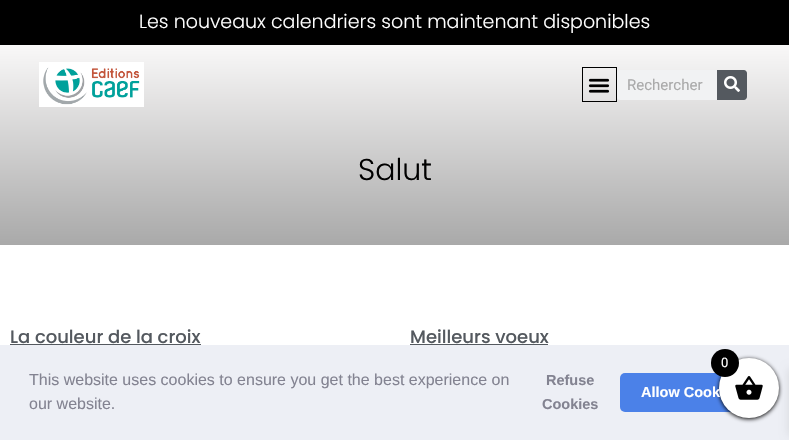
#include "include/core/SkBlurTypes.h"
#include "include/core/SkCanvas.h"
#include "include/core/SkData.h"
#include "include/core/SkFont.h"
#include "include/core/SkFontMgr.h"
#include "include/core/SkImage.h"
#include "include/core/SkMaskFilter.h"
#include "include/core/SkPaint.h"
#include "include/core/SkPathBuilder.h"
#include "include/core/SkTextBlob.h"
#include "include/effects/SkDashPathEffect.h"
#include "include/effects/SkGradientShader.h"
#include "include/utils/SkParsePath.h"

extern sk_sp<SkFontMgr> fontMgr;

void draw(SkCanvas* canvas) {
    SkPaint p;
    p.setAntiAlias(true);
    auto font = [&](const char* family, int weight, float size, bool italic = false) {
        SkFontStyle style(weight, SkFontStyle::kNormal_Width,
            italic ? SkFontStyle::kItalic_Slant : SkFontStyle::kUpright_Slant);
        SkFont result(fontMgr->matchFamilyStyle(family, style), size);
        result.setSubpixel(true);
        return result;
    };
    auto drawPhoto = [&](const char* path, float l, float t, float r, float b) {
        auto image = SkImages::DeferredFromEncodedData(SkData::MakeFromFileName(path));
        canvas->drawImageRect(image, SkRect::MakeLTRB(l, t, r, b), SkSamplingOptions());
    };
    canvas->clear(0xFFFFFFFF);
    p.setColor(0xFF000000);
    canvas->drawRect(SkRect::MakeLTRB(0, 0, 789, 45), p);
    auto font1 = font("Poppins", 300, 19);
    p.setColor(0xFFFFFFFF);
    canvas->drawString("Les nouveaux calendriers sont maintenant disponibles", 139, 28, font1, p);
    {
        const SkColor colors[] = {0xFFF9F8F8, 0xFFA9A9A9};
        const float stops[] = {0, 1};
        const SkPoint ends[] = {{395, 45}, {395, 245}};
        p.setShader(SkGradientShader::MakeLinear(ends, colors, stops, 2, SkTileMode::kClamp));
        p.setAlpha(255);
    }
    canvas->drawRect(SkRect::MakeLTRB(0, 45, 789, 245), p);
    drawPhoto("media/1.png", 39, 62, 144, 107);
    p.setStyle(SkPaint::kStroke_Style);
    p.setStrokeWidth(1);
    p.setShader(nullptr);
    p.setColor(0xFF000000);
    canvas->drawRect(SkRect::MakeLTRB(582.5f, 67.5f, 616.5f, 101.5f), p);
    drawPhoto("media/2.png", 588, 78, 610, 93);
    p.setStyle(SkPaint::kFill_Style);
    p.setColor(0xFFF1F2F3);
    canvas->drawRoundRect(SkRect::MakeLTRB(617, 70, 747, 100), 3, 3, p);
    auto font2 = font("Roboto", 400, 15);
    p.setColor(0xFFAAAAAA);
    canvas->drawString("Rechercher", 627, 90, font2, p);
    p.setColor(0xFF54595F);
    canvas->drawPath(SkPathBuilder().moveTo(717, 70).lineTo(744, 70).cubicTo(745.5f, 70, 747, 71.5f, 747, 73).lineTo(747, 97).cubicTo(747, 98.5f, 745.5f, 100, 744, 100).lineTo(717, 100).close().detach(), p);
    drawPhoto("media/3.png", 724, 76, 740, 92);
    auto font3 = font("Poppins", 300, 30);
    p.setColor(0xFF000000);
    canvas->drawString("Salut", 358, 180, font3, p);
    auto font4 = font("Poppins", 500, 18);
    p.setColor(0xFF54595F);
    canvas->drawString("La couleur de la croix", 10, 343, font4, p);
    canvas->drawRect(SkRect::MakeLTRB(10, 344, 201, 345), p);
    canvas->drawString("Meilleurs voeux", 410, 343, font4, p);
    canvas->drawRect(SkRect::MakeLTRB(410, 344, 548, 345), p);
    p.setColor(0xFFEDEFF5);
    canvas->drawRect(SkRect::MakeLTRB(0, 345, 789, 440), p);
    p.setColor(0xFF4B81E8);
    canvas->drawRoundRect(SkRect::MakeLTRB(620, 373, 760, 412), 5, 5, p);
    p.setColor(0xFF000000);
    p.setMaskFilter(SkMaskFilter::MakeBlur(kNormal_SkBlurStyle, 2));
    canvas->drawRoundRect(SkRect::MakeLTRB(719, 359, 779, 419), 30, 30, p);
    p.setMaskFilter(nullptr);
    p.setColor(0x1A000000);
    p.setMaskFilter(SkMaskFilter::MakeBlur(kNormal_SkBlurStyle, 5));
    canvas->drawRect(SkRect::MakeLTRB(789, 369, 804, 435), p);
    p.setMaskFilter(nullptr);
    p.setColor(0xFFFFFFFF);
    canvas->drawCircle(749, 388, 30, p);
    drawPhoto("media/4.png", 735, 376, 763, 400);
    p.setColor(0xFF000000);
    canvas->drawCircle(725, 363, 14, p);
    auto font5 = font("Roboto", 400, 13);
    p.setColor(0xFFFFFFFF);
    canvas->drawString("0", 721, 367, font5, p);
    auto font6 = font("Liberation Sans", 400, 16);
    p.setColor(0xFF838391);
    canvas->drawString("This website uses cookies to ensure you get the best experience on", 29, 385, font6, p);
    canvas->drawString("our website.", 29, 409, font6, p);
    auto font7 = font("Liberation Sans", 700, 14.5f);
    canvas->drawString("Refuse", 546, 385, font7, p);
    canvas->drawString("Cookies", 542, 409, font7, p);
    p.setColor(0xFFFFFFFF);
    canvas->drawString("Allow Cook", 641, 397, font7, p);
}
